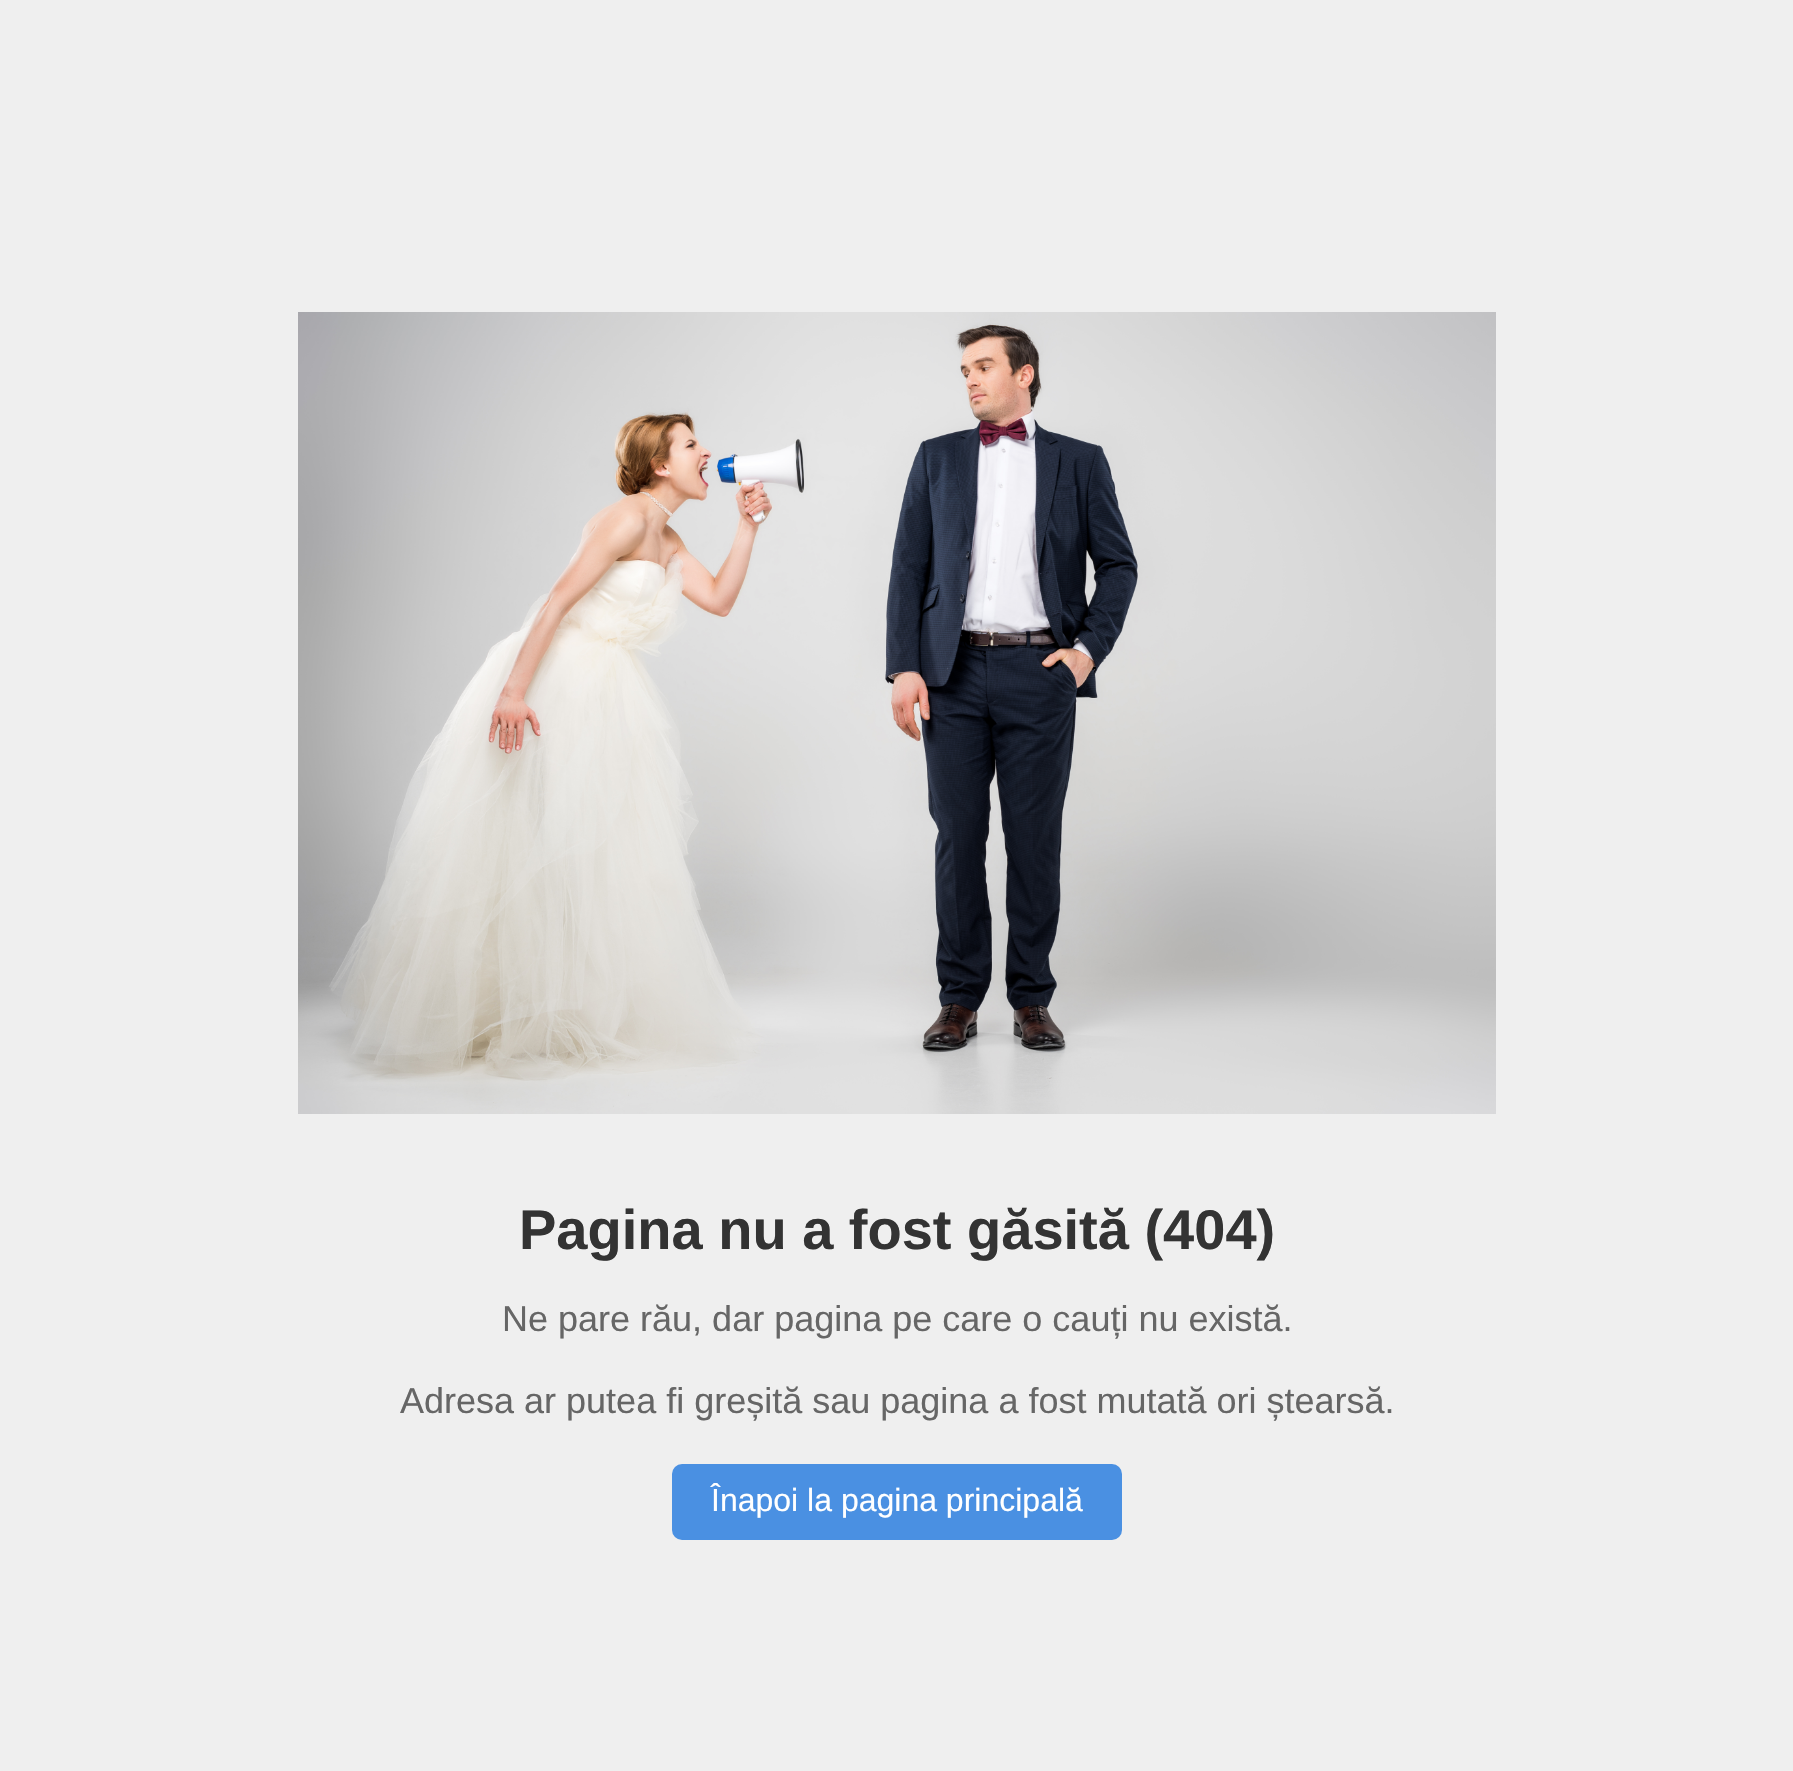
#include "include/core/SkBlurTypes.h"
#include "include/core/SkCanvas.h"
#include "include/core/SkData.h"
#include "include/core/SkFont.h"
#include "include/core/SkFontMgr.h"
#include "include/core/SkImage.h"
#include "include/core/SkMaskFilter.h"
#include "include/core/SkPaint.h"
#include "include/core/SkPathBuilder.h"
#include "include/core/SkTextBlob.h"
#include "include/effects/SkDashPathEffect.h"
#include "include/effects/SkGradientShader.h"
#include "include/utils/SkParsePath.h"

extern sk_sp<SkFontMgr> fontMgr;

void draw(SkCanvas* canvas) {
    SkPaint p;
    p.setAntiAlias(true);
    auto font = [&](const char* family, int weight, float size, bool italic = false) {
        SkFontStyle style(weight, SkFontStyle::kNormal_Width,
            italic ? SkFontStyle::kItalic_Slant : SkFontStyle::kUpright_Slant);
        SkFont result(fontMgr->matchFamilyStyle(family, style), size);
        result.setSubpixel(true);
        return result;
    };
    auto drawPhoto = [&](const char* path, float l, float t, float r, float b) {
        auto image = SkImages::DeferredFromEncodedData(SkData::MakeFromFileName(path));
        canvas->drawImageRect(image, SkRect::MakeLTRB(l, t, r, b), SkSamplingOptions());
    };
    canvas->clear(0xFFEFEFEF);
    drawPhoto("media/1.png", 298, 312, 1496, 1114);
    auto font1 = font("Liberation Sans", 700, 56);
    p.setColor(0xFF333333);
    canvas->drawString("Pagina nu a fost găsită (404)", 519, 1249, font1, p);
    auto font2 = font("Liberation Sans", 400, 36);
    p.setColor(0xFF666666);
    canvas->drawString("Ne pare rău, dar pagina pe care o cauți nu există.", 502, 1331, font2, p);
    canvas->drawString("Adresa ar putea fi greșită sau pagina a fost mutată ori ștearsă.", 400, 1413, font2, p);
    p.setColor(0xFF4A90E2);
    canvas->drawRoundRect(SkRect::MakeLTRB(672, 1464, 1122, 1540), 10, 10, p);
    auto font3 = font("Liberation Sans", 400, 32);
    p.setColor(0xFFFFFFFF);
    canvas->drawString("Înapoi la pagina principală", 711, 1511, font3, p);
}
